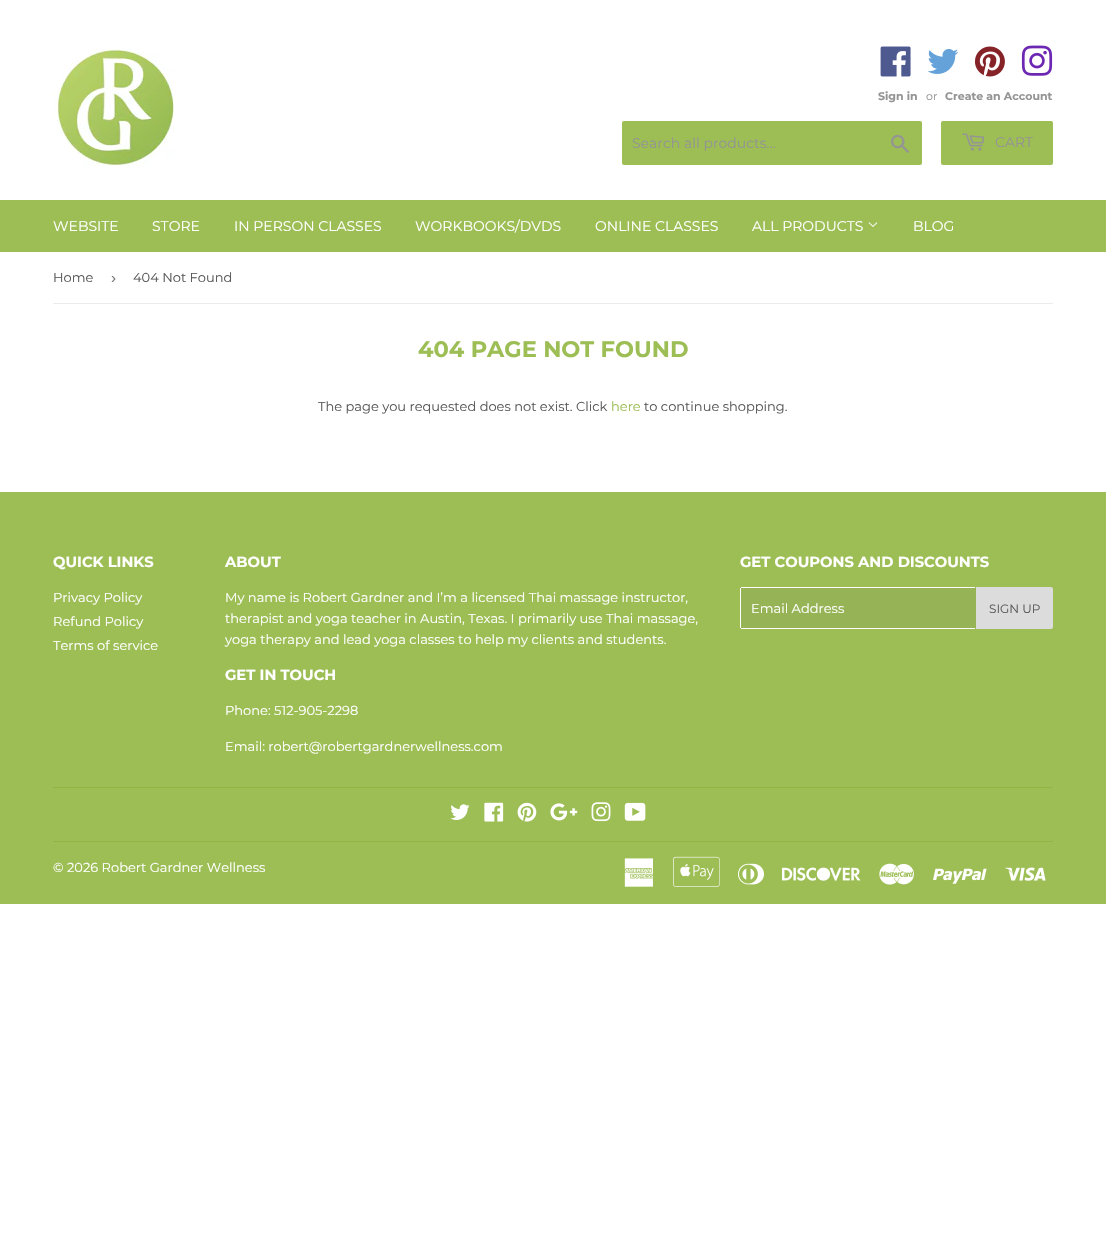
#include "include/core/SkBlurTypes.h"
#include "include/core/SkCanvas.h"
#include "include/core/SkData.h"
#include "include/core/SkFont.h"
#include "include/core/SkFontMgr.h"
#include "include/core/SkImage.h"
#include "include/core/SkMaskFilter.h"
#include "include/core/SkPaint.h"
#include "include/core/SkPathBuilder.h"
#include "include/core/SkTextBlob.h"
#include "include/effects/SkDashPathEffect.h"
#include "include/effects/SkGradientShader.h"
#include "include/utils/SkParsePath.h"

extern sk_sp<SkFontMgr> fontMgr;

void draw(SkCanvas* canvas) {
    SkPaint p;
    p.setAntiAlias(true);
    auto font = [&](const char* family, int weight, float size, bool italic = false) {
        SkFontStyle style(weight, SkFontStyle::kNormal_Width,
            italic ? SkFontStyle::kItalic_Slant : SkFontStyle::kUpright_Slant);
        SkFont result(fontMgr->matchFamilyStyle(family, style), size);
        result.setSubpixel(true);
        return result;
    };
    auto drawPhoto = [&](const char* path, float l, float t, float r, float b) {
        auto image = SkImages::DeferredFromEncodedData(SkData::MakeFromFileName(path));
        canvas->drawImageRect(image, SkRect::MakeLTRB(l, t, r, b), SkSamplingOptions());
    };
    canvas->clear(0xFFFFFFFF);
    drawPhoto("media/1.png", 53, 49, 174, 166);
    drawPhoto("media/2.png", 880, 46, 911, 77);
    drawPhoto("media/3.png", 927, 49, 959, 74);
    drawPhoto("media/4.png", 974, 46, 1005, 77);
    drawPhoto("media/5.png", 1021, 45, 1053, 76);
    auto font1 = font("Montserrat", 700, 11);
    p.setColor(0xFF949494);
    canvas->drawString("Sign in", 878, 100, font1, p);
    auto font2 = font("Montserrat", 400, 11);
    canvas->drawString("or", 926, 100, font2, p);
    canvas->drawString("Create an Account", 945, 100, font1, p);
    p.setColor(0xFF9DBE55);
    canvas->drawRoundRect(SkRect::MakeLTRB(622, 121, 922, 165), 2, 2, p);
    auto font3 = font("Montserrat", 400, 14);
    p.setColor(0xFF949494);
    canvas->drawString("Search all products...", 632, 148, font3, p);
    drawPhoto("media/6.png", 891, 134, 909, 153);
    p.setColor(0xFF9DBE55);
    canvas->drawRoundRect(SkRect::MakeLTRB(941, 121, 1053, 165), 2, 2, p);
    drawPhoto("media/7.png", 962, 133, 985, 151);
    p.setColor(0xFF949494);
    canvas->drawString("CART", 995, 147, font3, p);
    p.setColor(0xFF9DBE55);
    canvas->drawRect(SkRect::MakeLTRB(0, 200, 1106, 252), p);
    p.setColor(0xFFFFFFFF);
    {
        const struct { const char* s; float x, y; } items[] = {
            {"WEBSITE", 53, 231},
            {"STORE", 152, 231},
            {"IN PERSON CLASSES", 234, 231},
            {"WORKBOOKS/DVDS", 415, 231},
            {"ONLINE CLASSES", 595, 231},
            {"ALL PRODUCTS", 752, 231},
        };
        for (auto [s, x, y] : items) {
            canvas->drawString(s, x, y, font3, p);
        }
    }
    drawPhoto("media/8.png", 868, 222, 878, 227);
    canvas->drawString("BLOG", 913, 231, font3, p);
    p.setColor(0xFFECECEC);
    canvas->drawRect(SkRect::MakeLTRB(53, 303, 1053, 304), p);
    auto font4 = font("Montserrat", 400, 13);
    p.setColor(0xFF585858);
    canvas->drawString("Home", 53, 282, font4, p);
    auto font5 = font("Liberation Sans", 400, 15);
    p.setColor(0xFF767676);
    canvas->drawString("›", 111, 283, font5, p);
    p.setColor(0xFF585858);
    canvas->drawString("404 Not Found", 133, 282, font4, p);
    auto font6 = font("Montserrat", 700, 22.5f);
    p.setColor(0xFF9DBE55);
    canvas->drawString("404 PAGE NOT FOUND", 418, 357, font6, p);
    p.setColor(0xFF585858);
    canvas->drawString("The page you requested does not exist. Click", 318, 411, font4, p);
    p.setColor(0xFF9DBE55);
    canvas->drawString("here", 611, 411, font4, p);
    p.setColor(0xFF585858);
    canvas->drawString("to continue shopping.", 644, 411, font4, p);
    p.setColor(0xFF9DBE55);
    canvas->drawRect(SkRect::MakeLTRB(0, 492, 1106, 904), p);
    auto font7 = font("Montserrat", 700, 14.75f);
    p.setColor(0xFFFFFFFF);
    canvas->drawString("QUICK LINKS", 53, 567, font7, p);
    {
        const struct { const char* s; float x, y; } items[] = {
            {"Privacy Policy", 53, 602},
            {"Refund Policy", 53, 626},
            {"Terms of service", 53, 650},
        };
        for (auto [s, x, y] : items) {
            canvas->drawString(s, x, y, font4, p);
        }
    }
    canvas->drawString("ABOUT", 225, 567, font7, p);
    {
        const struct { const char* s; float x, y; } items[] = {
            {"My name is Robert Gardner and I’m a licensed Thai massage instructor,", 225, 602},
            {"therapist and yoga teacher in Austin, Texas. I primarily use Thai massage,", 225, 623},
            {"yoga therapy and lead yoga classes to help my clients and students.", 225, 644},
        };
        for (auto [s, x, y] : items) {
            canvas->drawString(s, x, y, font4, p);
        }
    }
    canvas->drawString("GET COUPONS AND DISCOUNTS", 740, 567, font7, p);
    p.setColor(0xFF96B455);
    canvas->drawRoundRect(SkRect::MakeLTRB(740, 587, 976, 629), 2, 2, p);
    {
        const struct { float l, t, r, b; SkColor color; } items[] = {
            {741, 587, 975, 588, 0xFFFFFFFF},
            {741, 628, 975, 629, 0xFFFFFFFF},
            {740, 588, 741, 628, 0xFFFFFFFF},
        };
        for (auto [l, t, r, b, color] : items) {
            p.setColor(color);
            canvas->drawRect(SkRect::MakeLTRB(l, t, r, b), p);
        }
    }
    canvas->drawString("Email Address", 751, 613, font4, p);
    p.setColor(0xFFDCDCDC);
    canvas->drawPath(SkPathBuilder().moveTo(976, 587).lineTo(1051, 587).cubicTo(1052, 587, 1053, 588, 1053, 589).lineTo(1053, 627).cubicTo(1053, 628, 1052, 629, 1051, 629).lineTo(976, 629).close().detach(), p);
    auto font8 = font("Montserrat", 400, 12);
    p.setColor(0xFF585858);
    canvas->drawString("SIGN UP", 989, 613, font8, p);
    p.setColor(0xFFFFFFFF);
    canvas->drawString("GET IN TOUCH", 225, 680, font7, p);
    canvas->drawString("Phone: 512-905-2298", 225, 715, font4, p);
    canvas->drawString("Email: robert@robertgardnerwellness.com", 225, 751, font4, p);
    p.setColor(0xFF91B445);
    canvas->drawRect(SkRect::MakeLTRB(53, 787, 1053, 788), p);
    drawPhoto("media/9.png", 450, 804, 470, 820);
    drawPhoto("media/10.png", 484, 802, 504, 822);
    drawPhoto("media/11.png", 517, 802, 537, 822);
    drawPhoto("media/12.png", 550, 803, 578, 821);
    drawPhoto("media/13.png", 591, 802, 611, 822);
    drawPhoto("media/14.png", 624, 802, 646, 821);
    canvas->drawRect(SkRect::MakeLTRB(53, 841, 1053, 842), p);
    p.setColor(0xFFFFFFFF);
    canvas->drawString("© 2026 Robert Gardner Wellness", 53, 872, font4, p);
    drawPhoto("media/15.png", 624, 858, 654, 887);
    drawPhoto("media/16.png", 673, 856, 720, 887);
    drawPhoto("media/17.png", 738, 863, 764, 885);
    drawPhoto("media/18.png", 782, 867, 861, 881);
    drawPhoto("media/19.png", 879, 863, 914, 885);
    drawPhoto("media/20.png", 933, 868, 987, 884);
    drawPhoto("media/21.png", 1005, 867, 1046, 881);
}
